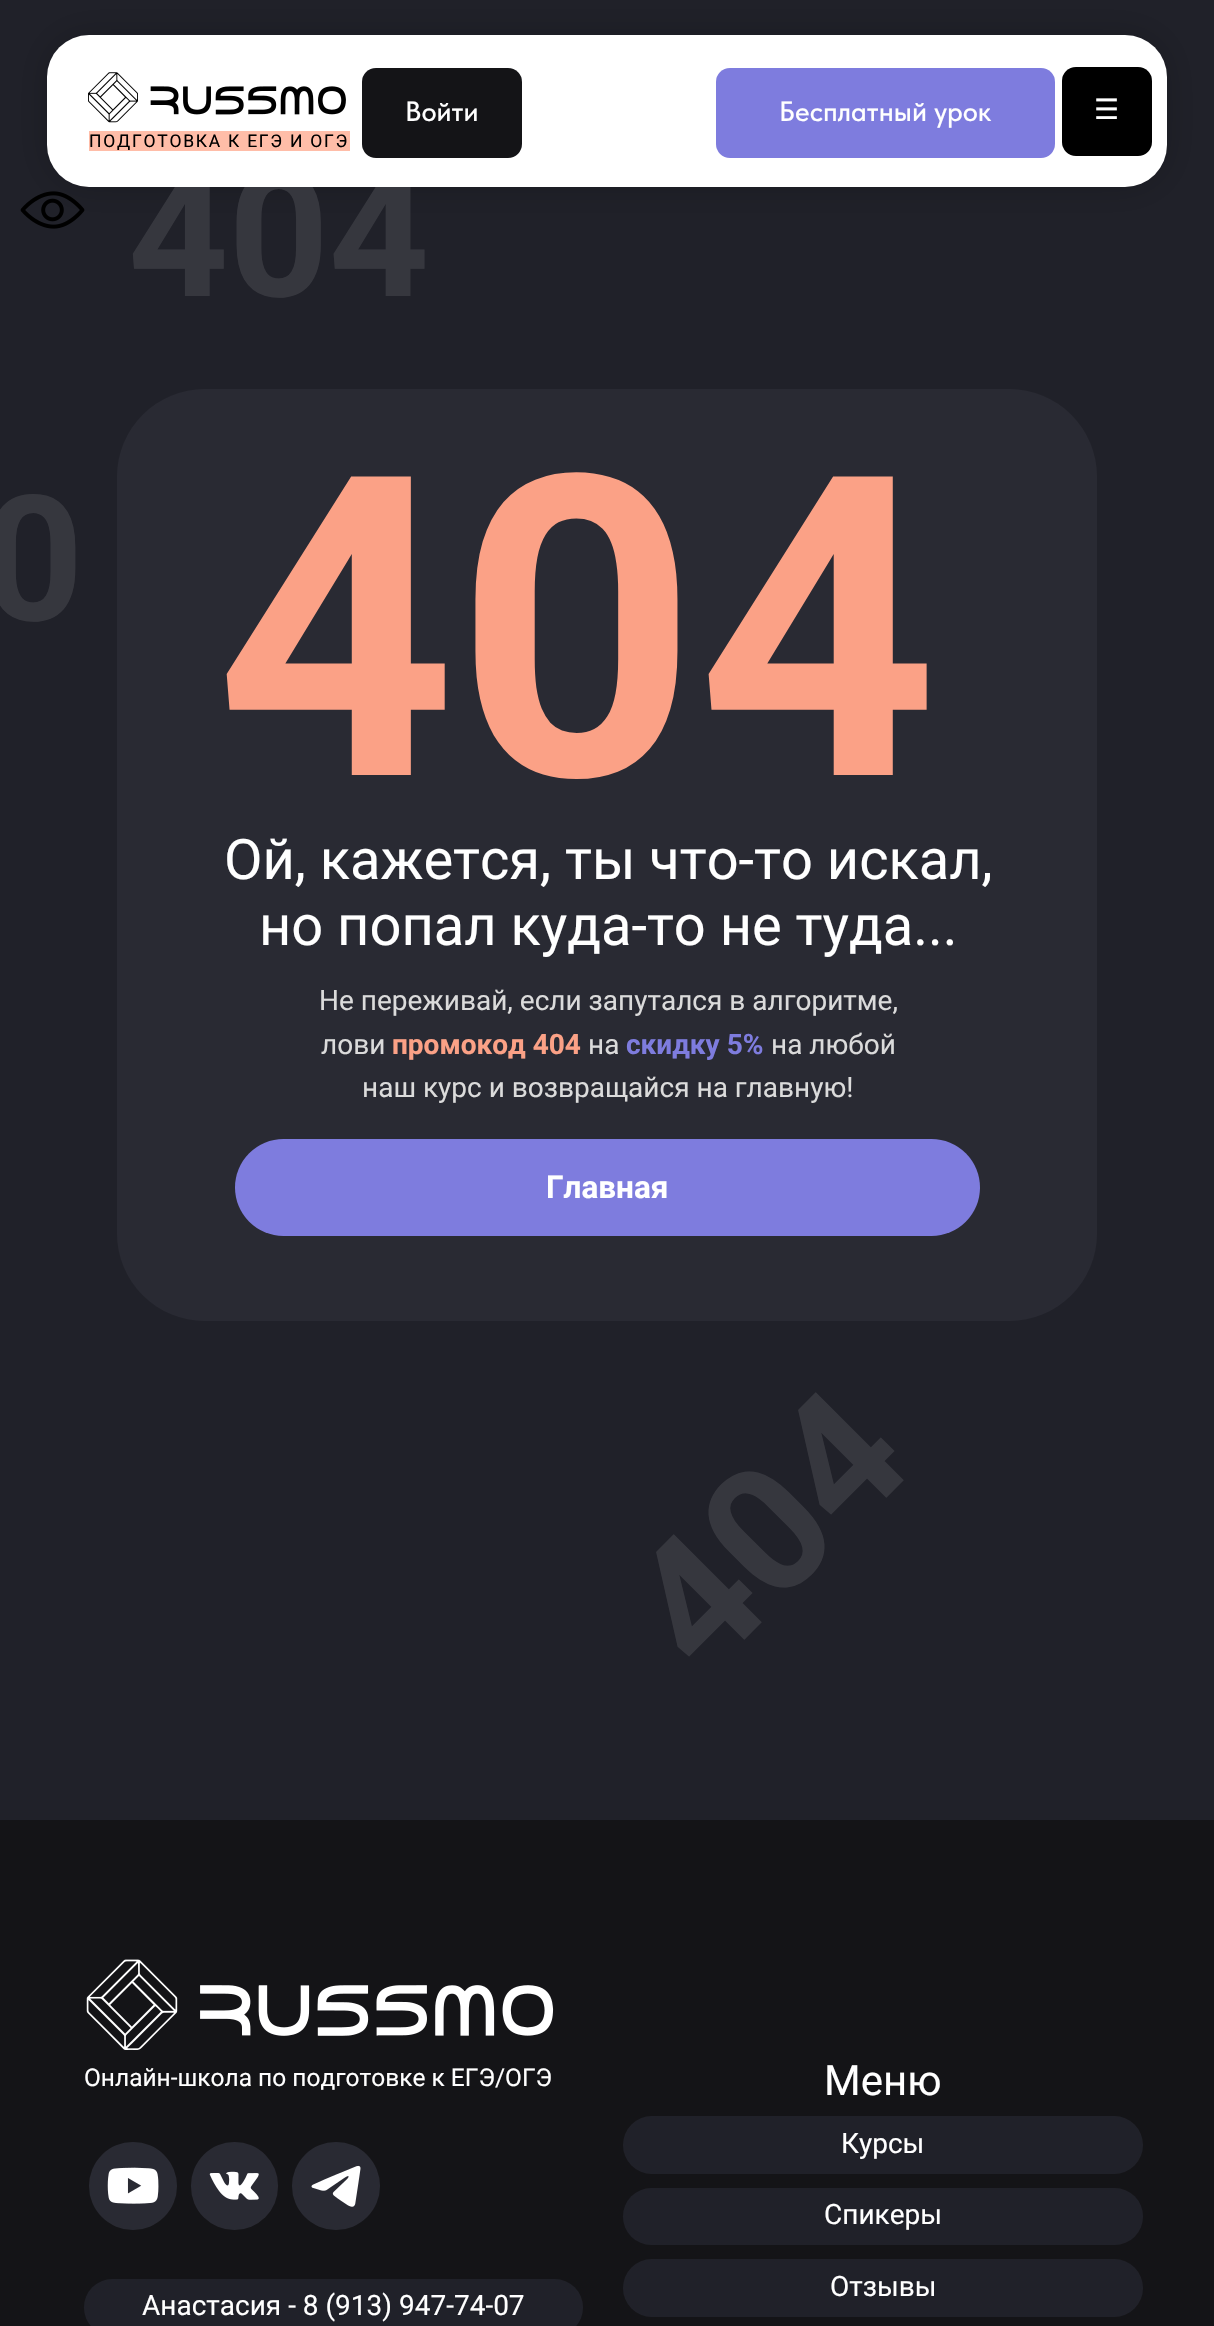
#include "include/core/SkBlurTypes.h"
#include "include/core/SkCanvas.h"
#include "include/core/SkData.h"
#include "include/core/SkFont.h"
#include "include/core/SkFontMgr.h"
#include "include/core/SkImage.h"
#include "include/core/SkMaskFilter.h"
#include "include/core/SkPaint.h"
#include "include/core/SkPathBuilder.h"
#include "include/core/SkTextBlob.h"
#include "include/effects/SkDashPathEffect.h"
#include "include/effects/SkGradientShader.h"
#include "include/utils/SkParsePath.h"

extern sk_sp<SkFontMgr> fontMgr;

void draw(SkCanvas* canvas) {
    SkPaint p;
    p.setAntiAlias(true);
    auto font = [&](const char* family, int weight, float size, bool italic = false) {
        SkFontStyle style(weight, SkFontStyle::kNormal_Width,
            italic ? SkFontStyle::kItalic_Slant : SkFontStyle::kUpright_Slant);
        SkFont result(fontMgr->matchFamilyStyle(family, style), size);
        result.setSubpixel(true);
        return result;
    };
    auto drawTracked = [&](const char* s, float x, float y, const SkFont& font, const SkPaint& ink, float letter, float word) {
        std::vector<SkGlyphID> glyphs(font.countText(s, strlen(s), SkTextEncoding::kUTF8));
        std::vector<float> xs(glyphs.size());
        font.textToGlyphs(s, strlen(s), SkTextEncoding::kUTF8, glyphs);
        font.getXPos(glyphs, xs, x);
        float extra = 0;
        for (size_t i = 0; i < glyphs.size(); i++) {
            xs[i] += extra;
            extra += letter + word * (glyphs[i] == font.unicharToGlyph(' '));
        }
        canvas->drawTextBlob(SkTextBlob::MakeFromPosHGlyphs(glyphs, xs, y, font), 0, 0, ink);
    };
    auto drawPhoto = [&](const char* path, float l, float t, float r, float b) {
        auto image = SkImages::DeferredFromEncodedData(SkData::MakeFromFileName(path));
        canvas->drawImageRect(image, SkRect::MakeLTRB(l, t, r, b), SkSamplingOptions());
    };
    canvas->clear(0xFF202129);
    p.setColor(0x33000000);
    p.setMaskFilter(SkMaskFilter::MakeBlur(kNormal_SkBlurStyle, 17.5f));
    canvas->drawRoundRect(SkRect::MakeLTRB(47, 35, 1167, 187), 42, 42, p);
    p.setMaskFilter(nullptr);
    auto font1 = font("Roboto", 700, 175);
    p.setColor(0xFF36373E);
    canvas->drawString("404", 128, 296, font1, p);
    p.setColor(0xFFFFFFFF);
    canvas->drawRoundRect(SkRect::MakeLTRB(47, 35, 1167, 187), 42, 42, p);
    drawPhoto("media/1.png", 88, 72, 346, 123);
    p.setColor(0xFF141417);
    canvas->drawRoundRect(SkRect::MakeLTRB(362, 68, 522, 158), 14, 14, p);
    auto font2 = font("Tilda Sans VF", 500, 28);
    p.setColor(0xFFFFFFFF);
    canvas->drawString("Войти", 405, 121, font2, p);
    p.setColor(0xFF7E7CDE);
    canvas->drawRoundRect(SkRect::MakeLTRB(716, 68, 1055, 158), 14, 14, p);
    p.setColor(0xFFFFFFFF);
    canvas->drawString("Бесплатный урок", 779, 121, font2, p);
    p.setColor(0xFF000000);
    canvas->drawRoundRect(SkRect::MakeLTRB(1062, 67, 1152, 156), 14, 14, p);
    auto font3 = font("DejaVu Sans", 400, 28);
    p.setColor(0xFFFFFFFF);
    canvas->drawString("☰", 1094, 119, font3, p);
    p.setColor(0xFFFFBDA8);
    canvas->drawRect(SkRect::MakeLTRB(89, 131, 350, 151), p);
    auto font4 = font("Roboto", 400, 17.5f);
    p.setColor(0xFF000000);
    drawTracked("ПОДГОТОВКА К ЕГЭ И ОГЭ", 89, 147, font4, p, 1.75f, 0);
    p.setColor(0xFF292A33);
    canvas->drawRoundRect(SkRect::MakeLTRB(117, 389, 1097, 1321), 88, 88, p);
    p.setColor(0xFF36373E);
    canvas->drawString("0", -17, 620, font1, p);
    auto font5 = font("Roboto", 700, 420);
    p.setColor(0xFFFBA186);
    canvas->drawString("404", 215, 775, font5, p);
    auto font6 = font("Roboto", 400, 56);
    p.setColor(0xFFFFFFFF);
    canvas->drawString("Ой, кажется, ты что-то искал,", 224, 879, font6, p);
    canvas->drawString("но попал куда-то не туда...", 259, 945, font6, p);
    auto font7 = font("Roboto", 400, 28);
    p.setColor(0xFFDBDBDB);
    canvas->drawString("Не переживай, если запутался в алгоритме,", 319, 1010, font7, p);
    canvas->drawString("лови", 321, 1054, font7, p);
    auto font8 = font("Roboto", 700, 28);
    p.setColor(0xFFFBA186);
    canvas->drawString("промокод 404", 392, 1054, font8, p);
    p.setColor(0xFFDBDBDB);
    canvas->drawString("на", 588, 1054, font7, p);
    p.setColor(0xFF7E7CDE);
    canvas->drawString("скидку 5%", 626, 1054, font8, p);
    p.setColor(0xFFDBDBDB);
    canvas->drawString("на любой", 771, 1054, font7, p);
    canvas->drawString("наш курс и возвращайся на главную!", 362, 1097, font7, p);
    p.setColor(0xFF7E7CDE);
    canvas->drawRoundRect(SkRect::MakeLTRB(235, 1139, 980, 1236), 48.5f, 48.5f, p);
    auto font9 = font("Roboto", 700, 31.5f);
    p.setColor(0xFFFFFFFF);
    canvas->drawString("Главная", 546, 1198, font9, p);
    p.setColor(0xFF36373E);
    canvas->save();
    canvas->rotate(-45, 704, 1680);
    canvas->drawString("404", 704, 1680, font1, p);
    canvas->restore();
    drawPhoto("media/2.png", 20, 191, 85, 229);
    p.setColor(0xFF141417);
    canvas->drawRect(SkRect::MakeLTRB(0, 1820, 1214, 2326), p);
    drawPhoto("media/3.png", 86, 1959, 554, 2050);
    auto font10 = font("Roboto", 400, 24.5f);
    p.setColor(0xFFFFFFFF);
    canvas->drawString("Онлайн-школа по подготовке к ЕГЭ/ОГЭ", 84, 2086, font10, p);
    auto font11 = font("Roboto", 400, 42);
    canvas->drawString("Меню", 824, 2095, font11, p);
    p.setColor(0xFF292A33);
    canvas->drawCircle(133, 2186, 44, p);
    canvas->drawRoundRect(SkRect::MakeLTRB(191, 2142, 278, 2230), 43.5f, 43.5f, p);
    canvas->drawCircle(336, 2186, 44, p);
    p.setColor(0xFF202129);
    canvas->drawRoundRect(SkRect::MakeLTRB(623, 2116, 1143, 2174), 29, 29, p);
    p.setColor(0xFFFFFFFF);
    canvas->drawString("Курсы", 841, 2153, font7, p);
    drawPhoto("media/4.png", 107, 2167, 159, 2204);
    drawPhoto("media/5.png", 209, 2171, 259, 2200);
    drawPhoto("media/6.png", 311, 2165, 361, 2207);
    p.setColor(0xFF202129);
    canvas->drawRoundRect(SkRect::MakeLTRB(623, 2188, 1143, 2245), 28.5f, 28.5f, p);
    p.setColor(0xFFFFFFFF);
    canvas->drawString("Спикеры", 824, 2224, font7, p);
    p.setColor(0xFF202129);
    canvas->drawRoundRect(SkRect::MakeLTRB(623, 2259, 1143, 2317), 29, 29, p);
    p.setColor(0xFFFFFFFF);
    canvas->drawString("Отзывы", 830, 2296, font7, p);
    p.setColor(0xFF202129);
    canvas->drawRoundRect(SkRect::MakeLTRB(84, 2279, 583, 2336), 28.5f, 28.5f, p);
    p.setColor(0xFFFFFFFF);
    canvas->drawString("Анастасия - 8 (913) 947-74-07", 142, 2315, font7, p);
}
